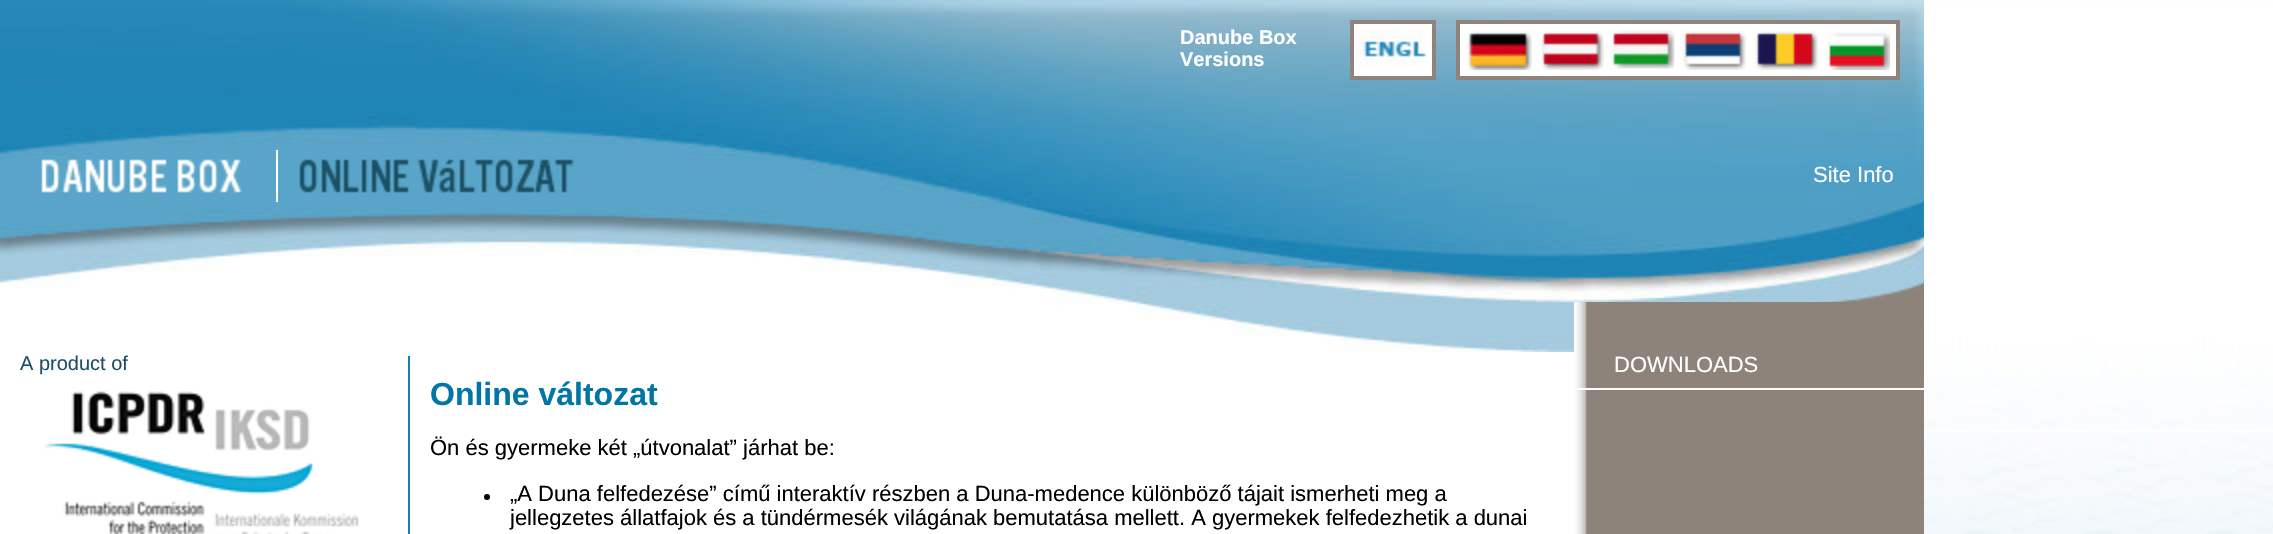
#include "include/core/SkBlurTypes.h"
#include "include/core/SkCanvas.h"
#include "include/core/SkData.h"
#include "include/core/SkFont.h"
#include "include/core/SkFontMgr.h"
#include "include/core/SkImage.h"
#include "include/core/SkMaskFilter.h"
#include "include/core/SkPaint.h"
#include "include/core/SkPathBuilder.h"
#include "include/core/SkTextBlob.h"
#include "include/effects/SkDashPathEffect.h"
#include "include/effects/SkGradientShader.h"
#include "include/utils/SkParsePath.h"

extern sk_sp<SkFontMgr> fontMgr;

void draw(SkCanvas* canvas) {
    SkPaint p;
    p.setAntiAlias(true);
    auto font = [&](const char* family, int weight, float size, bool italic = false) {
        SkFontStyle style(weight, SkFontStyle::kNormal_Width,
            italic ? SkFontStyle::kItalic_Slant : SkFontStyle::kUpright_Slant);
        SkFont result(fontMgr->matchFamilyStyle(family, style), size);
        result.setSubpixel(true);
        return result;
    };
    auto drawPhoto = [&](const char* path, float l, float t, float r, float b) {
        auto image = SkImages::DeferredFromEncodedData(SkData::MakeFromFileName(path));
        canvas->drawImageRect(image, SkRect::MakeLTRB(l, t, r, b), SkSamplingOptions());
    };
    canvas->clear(0xFFFFFFFF);
    drawPhoto("media/1.png", 1924, 0, 2273, 534);
    drawPhoto("media/2.png", 0, 352, 1924, 534);
    drawPhoto("media/3.png", 0, 0, 1924, 352);
    auto font1 = font("Liberation Sans", 700, 20);
    p.setColor(0xFFFFFFFF);
    canvas->drawString("Danube Box", 1180, 44, font1, p);
    canvas->drawString("Versions", 1180, 66, font1, p);
    canvas->drawRect(SkRect::MakeLTRB(1352, 22, 1434, 78), p);
    p.setStyle(SkPaint::kStroke_Style);
    p.setStrokeWidth(4);
    p.setColor(0xFF8E837D);
    canvas->drawRect(SkRect::MakeLTRB(1352, 22, 1434, 78), p);
    drawPhoto("media/4.png", 1360, 30, 1426, 66);
    p.setStyle(SkPaint::kFill_Style);
    p.setColor(0xFFFFFFFF);
    canvas->drawRect(SkRect::MakeLTRB(1458, 22, 1898, 78), p);
    p.setStyle(SkPaint::kStroke_Style);
    p.setColor(0xFF8E837D);
    canvas->drawRect(SkRect::MakeLTRB(1458, 22, 1898, 78), p);
    drawPhoto("media/5.png", 1466, 30, 1532, 70);
    drawPhoto("media/6.png", 1538, 30, 1604, 70);
    drawPhoto("media/7.png", 1610, 30, 1675, 70);
    drawPhoto("media/8.png", 1680, 30, 1746, 70);
    drawPhoto("media/9.png", 1754, 30, 1818, 70);
    drawPhoto("media/10.png", 1824, 30, 1890, 70);
    drawPhoto("media/11.png", 40, 158, 243, 193);
    p.setStyle(SkPaint::kFill_Style);
    p.setColor(0xFFFFFFFF);
    canvas->drawRect(SkRect::MakeLTRB(276, 150, 278, 202), p);
    drawPhoto("media/12.png", 299, 159, 575, 193);
    auto font2 = font("Liberation Sans", 400, 22);
    canvas->drawString("Site Info", 1813, 182, font2, p);
    auto font3 = font("Liberation Sans", 400, 20);
    p.setColor(0xFF1D4F66);
    canvas->drawString("A product of", 20, 370, font3, p);
    drawPhoto("media/13.png", 43, 391, 359, 534);
    drawPhoto("media/14.png", 1574, 302, 1851, 352);
    p.setColor(0xFFFFFFFF);
    canvas->drawRect(SkRect::MakeLTRB(1574, 388, 1924, 390), p);
    canvas->drawString("DOWNLOADS", 1614, 372, font2, p);
    p.setColor(0xFF147FB3);
    canvas->drawRect(SkRect::MakeLTRB(408, 356, 410, 534), p);
    auto font4 = font("Liberation Sans", 700, 32);
    p.setColor(0xFF0076A8);
    canvas->drawString("Online változat", 430, 405, font4, p);
    p.setColor(0xFF000000);
    canvas->drawString("Ön és gyermeke két „útvonalat” járhat be:", 430, 455, font2, p);
    canvas->drawCircle(487, 497, 3, p);
    canvas->drawString("„A Duna felfedezése” című interaktív részben a Duna-medence különböző tájait ismerheti meg a", 510, 501, font2, p);
    canvas->drawString("jellegzetes állatfajok és a tündérmesék világának bemutatása mellett. A gyermekek felfedezhetik a dunai", 510, 525, font2, p);
}
